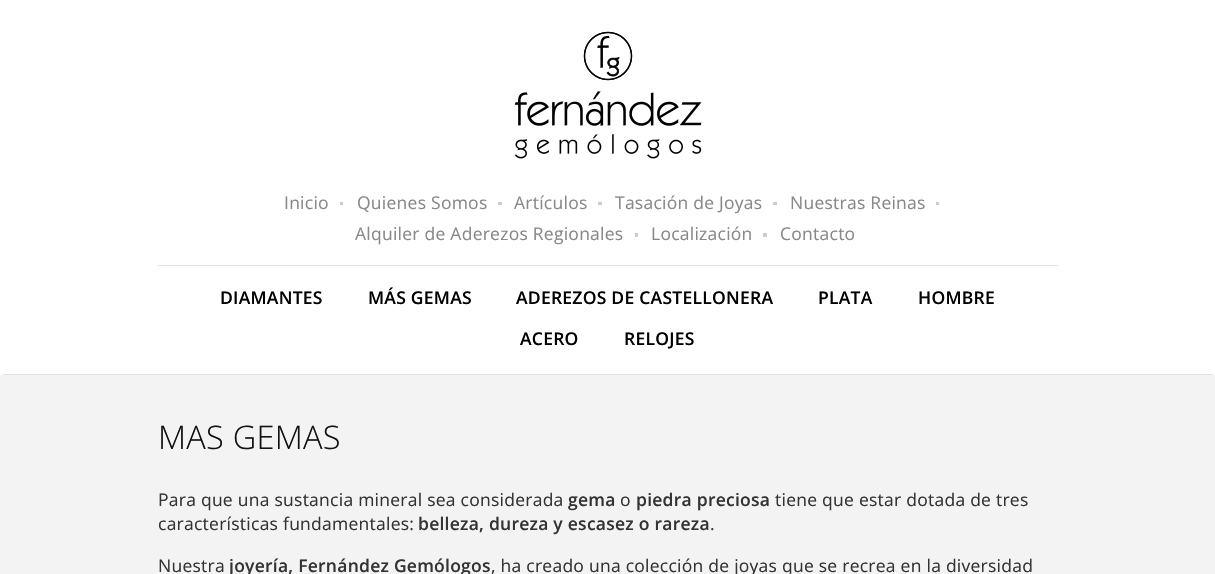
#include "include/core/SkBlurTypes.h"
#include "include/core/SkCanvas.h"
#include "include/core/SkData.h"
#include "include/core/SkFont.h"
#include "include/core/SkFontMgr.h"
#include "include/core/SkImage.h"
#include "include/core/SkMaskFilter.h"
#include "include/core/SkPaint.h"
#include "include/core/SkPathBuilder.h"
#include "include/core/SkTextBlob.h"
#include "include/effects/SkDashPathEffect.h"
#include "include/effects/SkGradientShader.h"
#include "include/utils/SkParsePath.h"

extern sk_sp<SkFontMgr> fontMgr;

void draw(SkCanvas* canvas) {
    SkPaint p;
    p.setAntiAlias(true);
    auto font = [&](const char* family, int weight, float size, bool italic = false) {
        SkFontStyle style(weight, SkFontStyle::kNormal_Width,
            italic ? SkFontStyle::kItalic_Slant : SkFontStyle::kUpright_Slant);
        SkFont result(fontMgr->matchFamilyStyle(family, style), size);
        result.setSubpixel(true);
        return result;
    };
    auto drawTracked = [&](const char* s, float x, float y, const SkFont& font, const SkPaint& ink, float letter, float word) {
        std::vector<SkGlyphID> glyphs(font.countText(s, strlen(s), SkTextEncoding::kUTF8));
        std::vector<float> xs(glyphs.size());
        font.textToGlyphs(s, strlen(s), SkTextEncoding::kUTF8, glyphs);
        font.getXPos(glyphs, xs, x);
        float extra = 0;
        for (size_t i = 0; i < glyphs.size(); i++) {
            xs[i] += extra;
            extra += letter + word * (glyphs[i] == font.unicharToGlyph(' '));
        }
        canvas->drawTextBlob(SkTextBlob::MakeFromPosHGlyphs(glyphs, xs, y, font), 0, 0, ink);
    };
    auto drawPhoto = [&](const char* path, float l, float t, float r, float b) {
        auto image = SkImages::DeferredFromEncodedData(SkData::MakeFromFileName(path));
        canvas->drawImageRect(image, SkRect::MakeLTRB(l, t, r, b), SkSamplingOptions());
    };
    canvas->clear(0xFFFFFFFF);
    p.setColor(0xFFE1E1E1);
    canvas->drawRect(SkRect::MakeLTRB(3, 374, 1213, 375), p);
    drawPhoto("media/1.png", 514, 31, 702, 159);
    p.setColor(0xFFCCCCCC);
    canvas->drawRect(SkRect::MakeLTRB(340, 202, 343, 205), p);
    auto font1 = font("Open Sans", 400, 17.5f);
    p.setColor(0xFF888888);
    drawTracked("Inicio", 284, 209, font1, p, 0.25f, 0);
    p.setColor(0xFFCCCCCC);
    canvas->drawRect(SkRect::MakeLTRB(498, 202, 502, 205), p);
    p.setColor(0xFF888888);
    drawTracked("Quienes Somos", 357, 209, font1, p, 0.25f, 0);
    p.setColor(0xFFCCCCCC);
    canvas->drawRect(SkRect::MakeLTRB(598, 202, 602, 205), p);
    p.setColor(0xFF888888);
    drawTracked("Artículos", 514, 209, font1, p, 0.25f, 0);
    p.setColor(0xFFCCCCCC);
    canvas->drawRect(SkRect::MakeLTRB(773, 202, 777, 205), p);
    p.setColor(0xFF888888);
    drawTracked("Tasación de Joyas", 615, 209, font1, p, 0.25f, 0);
    p.setColor(0xFFCCCCCC);
    canvas->drawRect(SkRect::MakeLTRB(936, 202, 939, 205), p);
    p.setColor(0xFF888888);
    drawTracked("Nuestras Reinas", 790, 209, font1, p, 0.25f, 0);
    p.setColor(0xFFCCCCCC);
    canvas->drawRect(SkRect::MakeLTRB(635, 233, 638, 237), p);
    p.setColor(0xFF888888);
    drawTracked("Alquiler de Aderezos Regionales", 355, 240, font1, p, 0.25f, 0);
    p.setColor(0xFFCCCCCC);
    canvas->drawRect(SkRect::MakeLTRB(763, 233, 767, 237), p);
    p.setColor(0xFF888888);
    drawTracked("Localización", 651, 240, font1, p, 0.25f, 0);
    drawTracked("Contacto", 780, 240, font1, p, 0.25f, 0);
    p.setColor(0xFFE1E1E1);
    canvas->drawRect(SkRect::MakeLTRB(158, 265, 1058, 266), p);
    auto font2 = font("Open Sans", 600, 17.5f);
    p.setColor(0xFF000000);
    {
        const struct { const char* s; float x, y; } items[] = {
            {"DIAMANTES", 220, 304},
            {"MÁS GEMAS", 368, 304},
            {"ADEREZOS DE CASTELLONERA", 516, 304},
            {"PLATA", 818, 304},
            {"HOMBRE", 918, 304},
            {"ACERO", 520, 345},
            {"RELOJES", 624, 345},
        };
        for (auto [s, x, y] : items) {
            drawTracked(s, x, y, font2, p, 0.25f, 0);
        }
    }
    p.setColor(0xFFF3F3F3);
    canvas->drawRect(SkRect::MakeLTRB(0, 375, 1215, 574), p);
    auto font3 = font("Open Sans", 300, 32.5f);
    p.setColor(0xFF111111);
    drawTracked("MAS GEMAS", 158, 449, font3, p, 0.25f, 0);
    p.setColor(0xFF333333);
    drawTracked("Para que una sustancia mineral sea considerada", 158, 506, font1, p, 0.25f, 0);
    drawTracked("gema", 568, 506, font2, p, 0.25f, 0);
    drawTracked("o", 620, 506, font1, p, 0.25f, 0);
    drawTracked("piedra preciosa", 636, 506, font2, p, 0.25f, 0);
    drawTracked("tiene que estar dotada de tres", 775, 506, font1, p, 0.25f, 0);
    drawTracked("características fundamentales:", 158, 530, font1, p, 0.25f, 0);
    drawTracked("belleza, dureza y escasez o rareza", 418, 530, font2, p, 0.25f, 0);
    drawTracked(".", 710, 530, font1, p, 0.25f, 0);
    drawTracked("Nuestra", 158, 572, font1, p, 0.25f, 0);
    drawTracked("joyería, Fernández Gemólogos", 229, 572, font2, p, 0.25f, 0);
    drawTracked(", ha creado una colección de joyas que se recrea en la diversidad", 491, 572, font1, p, 0.25f, 0);
}
